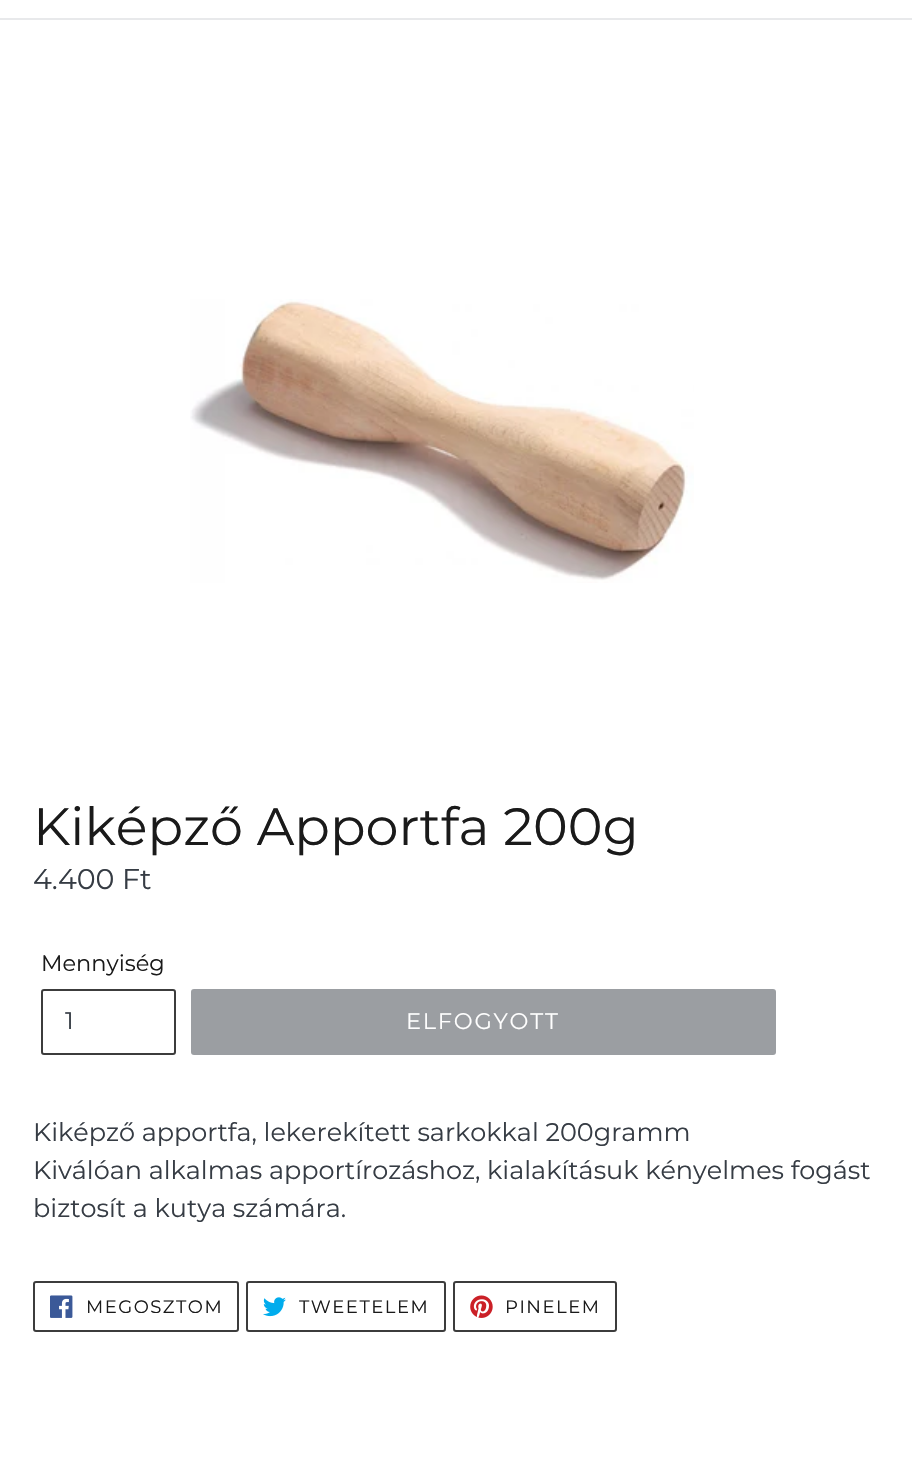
#include "include/core/SkBlurTypes.h"
#include "include/core/SkCanvas.h"
#include "include/core/SkData.h"
#include "include/core/SkFont.h"
#include "include/core/SkFontMgr.h"
#include "include/core/SkImage.h"
#include "include/core/SkMaskFilter.h"
#include "include/core/SkPaint.h"
#include "include/core/SkPathBuilder.h"
#include "include/core/SkTextBlob.h"
#include "include/effects/SkDashPathEffect.h"
#include "include/effects/SkGradientShader.h"
#include "include/utils/SkParsePath.h"

extern sk_sp<SkFontMgr> fontMgr;

void draw(SkCanvas* canvas) {
    SkPaint p;
    p.setAntiAlias(true);
    auto font = [&](const char* family, int weight, float size, bool italic = false) {
        SkFontStyle style(weight, SkFontStyle::kNormal_Width,
            italic ? SkFontStyle::kItalic_Slant : SkFontStyle::kUpright_Slant);
        SkFont result(fontMgr->matchFamilyStyle(family, style), size);
        result.setSubpixel(true);
        return result;
    };
    auto drawTracked = [&](const char* s, float x, float y, const SkFont& font, const SkPaint& ink, float letter, float word) {
        std::vector<SkGlyphID> glyphs(font.countText(s, strlen(s), SkTextEncoding::kUTF8));
        std::vector<float> xs(glyphs.size());
        font.textToGlyphs(s, strlen(s), SkTextEncoding::kUTF8, glyphs);
        font.getXPos(glyphs, xs, x);
        float extra = 0;
        for (size_t i = 0; i < glyphs.size(); i++) {
            xs[i] += extra;
            extra += letter + word * (glyphs[i] == font.unicharToGlyph(' '));
        }
        canvas->drawTextBlob(SkTextBlob::MakeFromPosHGlyphs(glyphs, xs, y, font), 0, 0, ink);
    };
    auto drawPhoto = [&](const char* path, float l, float t, float r, float b) {
        auto image = SkImages::DeferredFromEncodedData(SkData::MakeFromFileName(path));
        canvas->drawImageRect(image, SkRect::MakeLTRB(l, t, r, b), SkSamplingOptions());
    };
    canvas->clear(0xFFFFFFFF);
    p.setColor(0xFFE8E9EB);
    canvas->drawRect(SkRect::MakeLTRB(0, 18, 912, 20), p);
    drawPhoto("media/1.png", 190, 299, 694, 583);
    auto font1 = font("Montserrat", 100, 52.5f);
    p.setColor(0xFF1A1A1A);
    canvas->drawString("Kiképző Apportfa 200g", 33, 845, font1, p);
    auto font2 = font("Montserrat", 100, 28.5f);
    p.setColor(0xFF363C44);
    canvas->drawString("4.400 Ft", 33, 889, font2, p);
    auto font3 = font("Montserrat", 100, 22.5f);
    p.setColor(0xFF1A1A1A);
    canvas->drawString("Mennyiség", 41, 971, font3, p);
    p.setStyle(SkPaint::kStroke_Style);
    p.setStrokeWidth(2);
    p.setColor(0xFF3C3C3C);
    canvas->drawRoundRect(SkRect::MakeLTRB(42, 990, 175, 1054), 2, 2, p);
    auto font4 = font("Montserrat", 100, 24);
    p.setStyle(SkPaint::kFill_Style);
    p.setColor(0xFF363C44);
    canvas->drawString("1", 65, 1029, font4, p);
    p.setColor(0xFF9B9EA2);
    canvas->drawRoundRect(SkRect::MakeLTRB(191, 989, 776, 1055), 3, 3, p);
    p.setColor(0xFFFFFFFF);
    drawTracked("ELFOGYOTT", 406, 1029, font3, p, 1.75f, 0);
    auto font5 = font("Montserrat", 100, 25.5f);
    p.setColor(0xFF363C44);
    {
        const struct { const char* s; float x, y; } items[] = {
            {"Kiképző apportfa, lekerekített sarkokkal 200gramm", 33, 1141},
            {"Kiválóan alkalmas apportírozáshoz, kialakításuk kényelmes fogást", 33, 1179},
            {"biztosít a kutya számára.", 33, 1217},
        };
        for (auto [s, x, y] : items) {
            canvas->drawString(s, x, y, font5, p);
        }
    }
    p.setStyle(SkPaint::kStroke_Style);
    p.setColor(0xFF3C3C3C);
    canvas->drawRoundRect(SkRect::MakeLTRB(34, 1282, 238, 1331), 2, 2, p);
    drawPhoto("media/2.png", 50, 1295, 73, 1318);
    auto font6 = font("Montserrat", 100, 18);
    p.setStyle(SkPaint::kFill_Style);
    p.setColor(0xFF1A1A1A);
    drawTracked("MEGOSZTOM", 86, 1313, font6, p, 1.5f, 0);
    p.setStyle(SkPaint::kStroke_Style);
    p.setColor(0xFF3C3C3C);
    canvas->drawRoundRect(SkRect::MakeLTRB(247, 1282, 445, 1331), 2, 2, p);
    drawPhoto("media/3.png", 263, 1297, 286, 1317);
    p.setStyle(SkPaint::kFill_Style);
    p.setColor(0xFF1A1A1A);
    drawTracked("TWEETELEM", 299, 1313, font6, p, 1.5f, 0);
    p.setStyle(SkPaint::kStroke_Style);
    p.setColor(0xFF3C3C3C);
    canvas->drawRoundRect(SkRect::MakeLTRB(454, 1282, 616, 1331), 2, 2, p);
    drawPhoto("media/4.png", 470, 1295, 493, 1318);
    p.setStyle(SkPaint::kFill_Style);
    p.setColor(0xFF1A1A1A);
    drawTracked("PINELEM", 505, 1313, font6, p, 1.5f, 0);
}
